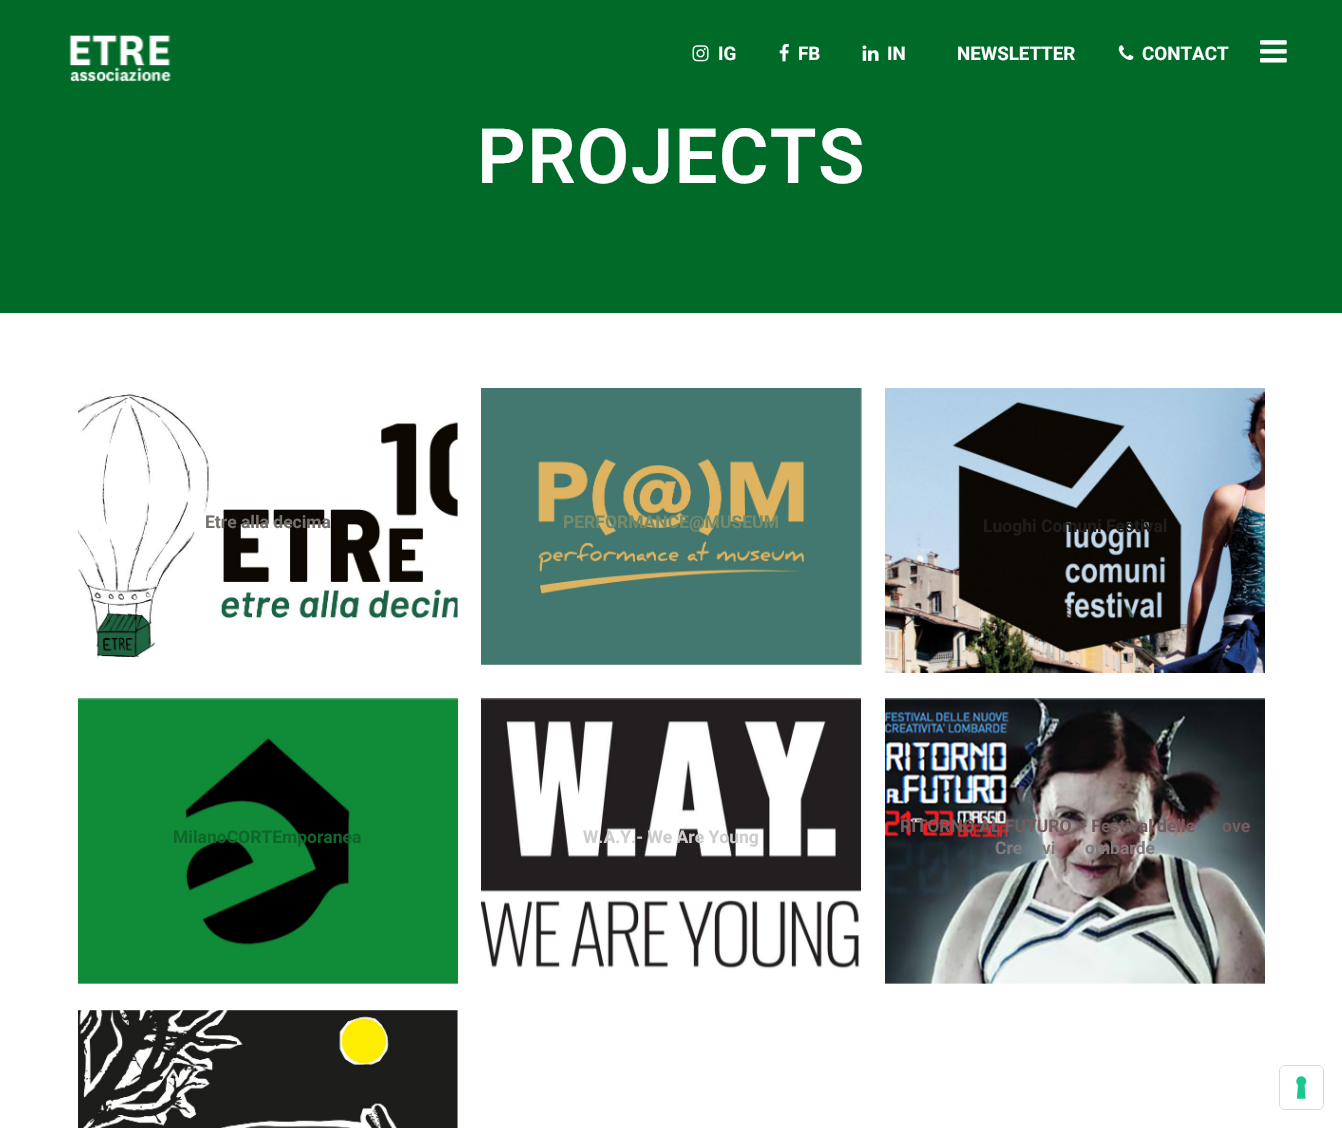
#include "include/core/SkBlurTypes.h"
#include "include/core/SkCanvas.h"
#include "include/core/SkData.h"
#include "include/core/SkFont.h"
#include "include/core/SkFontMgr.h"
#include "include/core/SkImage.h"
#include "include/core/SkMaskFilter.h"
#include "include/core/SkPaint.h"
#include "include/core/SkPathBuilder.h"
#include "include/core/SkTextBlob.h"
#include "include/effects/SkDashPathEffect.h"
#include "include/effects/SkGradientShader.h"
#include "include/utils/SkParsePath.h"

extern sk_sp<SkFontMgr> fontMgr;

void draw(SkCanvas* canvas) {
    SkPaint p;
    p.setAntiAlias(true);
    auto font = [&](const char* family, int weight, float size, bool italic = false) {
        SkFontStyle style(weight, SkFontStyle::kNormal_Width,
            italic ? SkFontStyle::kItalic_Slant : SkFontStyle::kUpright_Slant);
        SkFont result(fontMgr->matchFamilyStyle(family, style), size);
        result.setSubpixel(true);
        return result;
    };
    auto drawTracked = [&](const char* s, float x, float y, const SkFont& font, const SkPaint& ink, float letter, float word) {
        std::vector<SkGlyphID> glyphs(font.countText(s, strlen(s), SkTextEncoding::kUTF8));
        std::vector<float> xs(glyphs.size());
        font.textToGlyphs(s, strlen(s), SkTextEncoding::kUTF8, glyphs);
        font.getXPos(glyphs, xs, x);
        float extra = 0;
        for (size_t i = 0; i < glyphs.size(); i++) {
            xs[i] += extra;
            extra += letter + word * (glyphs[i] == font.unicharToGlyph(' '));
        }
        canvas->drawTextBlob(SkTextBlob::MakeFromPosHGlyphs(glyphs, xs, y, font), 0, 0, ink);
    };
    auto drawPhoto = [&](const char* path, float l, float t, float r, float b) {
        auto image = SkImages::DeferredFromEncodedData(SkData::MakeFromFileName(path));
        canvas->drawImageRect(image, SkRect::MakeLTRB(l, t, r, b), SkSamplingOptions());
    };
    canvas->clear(0xFFFFFFFF);
    p.setColor(0xFF006B29);
    canvas->drawRect(SkRect::MakeLTRB(0, 0, 1342, 313), p);
    drawPhoto("media/1.png", 69, 35, 171, 82);
    drawPhoto("media/2.png", 692, 45, 709, 62);
    auto font1 = font("Roboto", 700, 18.75f);
    p.setColor(0xFFFFFFFF);
    canvas->drawString("IG", 718, 60, font1, p);
    drawPhoto("media/3.png", 779, 43, 789, 62);
    canvas->drawString("FB", 798, 60, font1, p);
    drawPhoto("media/4.png", 862, 45, 879, 61);
    canvas->drawString("IN", 887, 60, font1, p);
    canvas->drawString("NEWSLETTER", 957, 60, font1, p);
    drawPhoto("media/5.png", 1118, 45, 1134, 60);
    canvas->drawString("CONTACT", 1142, 60, font1, p);
    drawPhoto("media/6.png", 1260, 40, 1287, 63);
    auto font2 = font("Roboto", 600, 76.25f);
    drawTracked("PROJECTS", 477, 183, font2, p, 1.25f, 0);
    drawPhoto("media/7.png", 78, 390, 458, 659);
    auto font3 = font("Roboto", 700, 17.5f);
    p.setColor(0xFF74716D);
    canvas->drawString("Etre alla decima", 205, 528, font3, p);
    drawPhoto("media/8.png", 481, 388, 862, 665);
    p.setColor(0xFF758B6A);
    canvas->drawString("PERFORMANCE@MUSEUM", 563, 528, font3, p);
    drawPhoto("media/9.png", 885, 388, 1265, 673);
    p.setColor(0xFF1E1D1B);
    canvas->drawString("Luoghi Comuni Festival", 983, 532, font3, p);
    drawPhoto("media/10.png", 78, 698, 458, 984);
    p.setColor(0xFF0C6729);
    canvas->drawString("MilanoCORTEmporanea", 173, 843, font3, p);
    drawPhoto("media/11.png", 481, 698, 861, 969);
    p.setColor(0xFFCECDCD);
    canvas->drawString("W.A.Y.- We Are Young", 583, 843, font3, p);
    drawPhoto("media/12.png", 885, 698, 1265, 984);
    p.setColor(0xFF745C5F);
    canvas->drawString("RITORNO AL FUTURO – Festival delle", 900, 832, font3, p);
    canvas->drawString("ove", 1222, 832, font3, p);
    p.setColor(0xFF827B7E);
    {
        const struct { const char* s; float x, y; } items[] = {
            {"Cre", 995, 854},
            {"vi", 1042, 854},
            {"ombarde", 1085, 854},
        };
        for (auto [s, x, y] : items) {
            canvas->drawString(s, x, y, font3, p);
        }
    }
    drawPhoto("media/13.png", 78, 1010, 458, 1128);
    p.setStyle(SkPaint::kStroke_Style);
    p.setStrokeWidth(1);
    p.setColor(0xFFD9D9D9);
    canvas->drawRoundRect(SkRect::MakeLTRB(1279.5f, 1065.5f, 1323.5f, 1109.5f), 5.5f, 5.5f, p);
    p.setStyle(SkPaint::kFill_Style);
    p.setColor(0xFFFFFFFF);
    canvas->drawRoundRect(SkRect::MakeLTRB(1280, 1066, 1323, 1109), 5, 5, p);
    drawPhoto("media/14.png", 1296, 1076, 1307, 1099);
}
